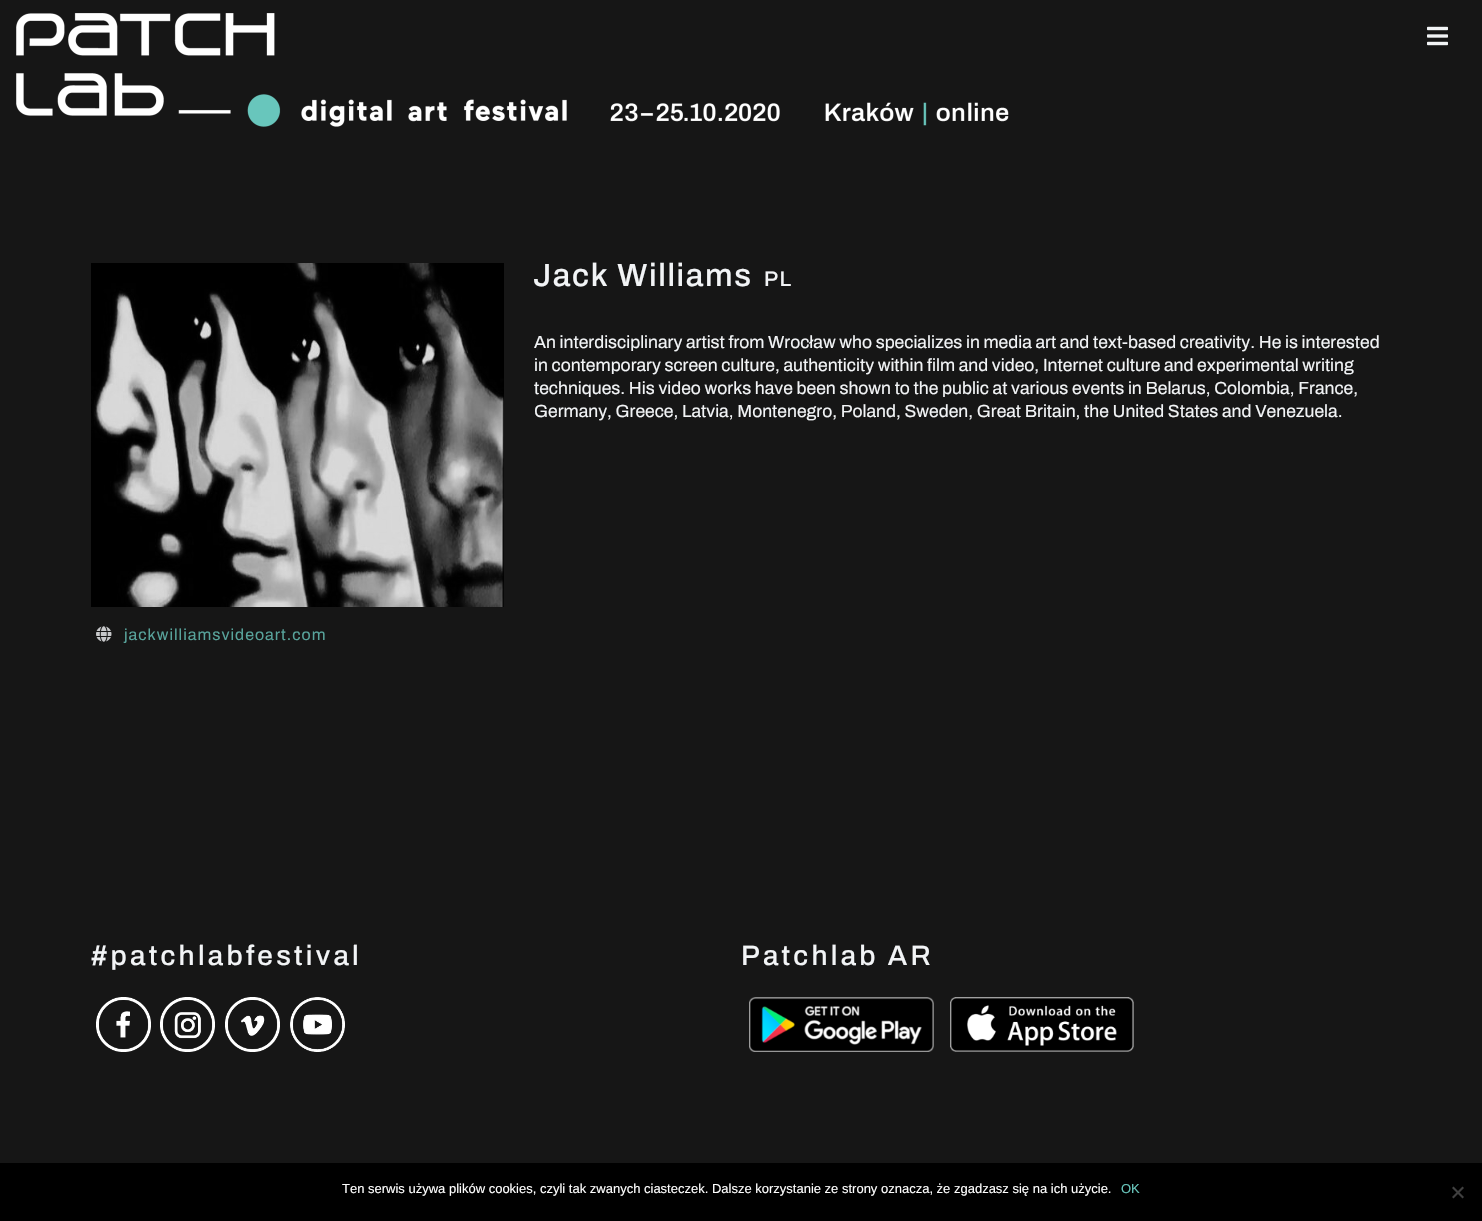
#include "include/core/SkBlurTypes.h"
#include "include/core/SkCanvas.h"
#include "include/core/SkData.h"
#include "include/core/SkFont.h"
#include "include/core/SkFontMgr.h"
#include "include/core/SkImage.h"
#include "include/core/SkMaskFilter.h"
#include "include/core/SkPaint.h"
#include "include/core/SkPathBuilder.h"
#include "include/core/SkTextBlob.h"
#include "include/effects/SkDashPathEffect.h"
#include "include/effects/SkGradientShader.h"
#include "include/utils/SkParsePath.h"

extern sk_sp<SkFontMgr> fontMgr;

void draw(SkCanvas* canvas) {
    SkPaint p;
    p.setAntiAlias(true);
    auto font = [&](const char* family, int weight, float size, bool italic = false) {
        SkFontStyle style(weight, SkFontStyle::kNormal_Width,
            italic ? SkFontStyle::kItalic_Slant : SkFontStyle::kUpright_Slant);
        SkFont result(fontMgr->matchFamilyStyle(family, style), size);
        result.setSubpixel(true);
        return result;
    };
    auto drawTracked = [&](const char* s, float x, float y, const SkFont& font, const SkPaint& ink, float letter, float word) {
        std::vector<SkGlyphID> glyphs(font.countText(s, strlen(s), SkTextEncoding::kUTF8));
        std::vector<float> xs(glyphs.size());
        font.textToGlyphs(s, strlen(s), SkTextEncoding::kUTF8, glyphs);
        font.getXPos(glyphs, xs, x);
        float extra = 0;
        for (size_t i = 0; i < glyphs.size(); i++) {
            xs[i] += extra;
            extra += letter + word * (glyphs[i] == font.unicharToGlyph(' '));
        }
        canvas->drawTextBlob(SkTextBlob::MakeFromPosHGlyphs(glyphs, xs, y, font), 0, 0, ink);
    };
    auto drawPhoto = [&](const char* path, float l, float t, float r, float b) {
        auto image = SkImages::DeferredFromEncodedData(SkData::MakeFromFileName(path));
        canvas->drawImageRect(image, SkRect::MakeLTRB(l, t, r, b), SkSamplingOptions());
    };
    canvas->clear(0xFF161616);
    drawPhoto("media/1.png", 16, 13, 281, 127);
    drawPhoto("media/2.png", 1427, 26, 1448, 46);
    drawPhoto("media/3.png", 301, 99, 1009, 127);
    auto font1 = font("Archivo", 500, 32);
    p.setColor(0xFFF2F4F6);
    drawTracked("Jack Williams", 533, 286, font1, p, 1.6f, 0);
    auto font2 = font("Archivo", 500, 21);
    drawTracked("PL", 764, 286, font2, p, 1.6f, 0);
    auto font3 = font("Archivo", 400, 17.6f);
    {
        const struct { const char* s; float x, y; } items[] = {
            {"An interdisciplinary artist from Wrocław who specializes in media art and text-based creativity. He is interested", 534, 348},
            {"in contemporary screen culture, authenticity within film and video, Internet culture and experimental writing", 534, 371},
            {"techniques. His video works have been shown to the public at various events in Belarus, Colombia, France,", 534, 394},
            {"Germany, Greece, Latvia, Montenegro, Poland, Sweden, Great Britain, the United States and Venezuela.", 534, 417},
        };
        for (auto [s, x, y] : items) {
            canvas->drawString(s, x, y, font3, p);
        }
    }
    drawPhoto("media/4.png", 91, 263, 504, 607);
    drawPhoto("media/5.png", 96, 626, 112, 642);
    auto font4 = font("Archivo", 400, 16);
    p.setColor(0xFF58A39B);
    drawTracked("jackwilliamsvideoart.com", 124, 640, font4, p, 1, 0);
    auto font5 = font("Archivo", 500, 28);
    p.setColor(0xFFF2F4F6);
    drawTracked("#patchlabfestival", 91, 965, font5, p, 3.25f, 0);
    drawPhoto("media/6.png", 96, 997, 151, 1052);
    drawPhoto("media/7.png", 160, 997, 215, 1052);
    drawPhoto("media/8.png", 225, 997, 280, 1052);
    drawPhoto("media/9.png", 290, 997, 345, 1052);
    drawTracked("Patchlab AR", 741, 965, font5, p, 3.25f, 0);
    drawPhoto("media/10.png", 749, 997, 934, 1052);
    drawPhoto("media/11.png", 950, 997, 1134, 1052);
    p.setColor(0xFF000000);
    canvas->drawRect(SkRect::MakeLTRB(0, 1163, 1482, 1221), p);
    auto font6 = font("Liberation Sans", 400, 13);
    p.setColor(0xFFFFFFFF);
    canvas->drawString("Ten serwis używa plików cookies, czyli tak zwanych ciasteczek. Dalsze korzystanie ze strony oznacza, że zgadzasz się na ich użycie.", 342, 1193, font6, p);
    p.setColor(0xFF68C6BC);
    canvas->drawString("OK", 1121, 1193, font6, p);
    p.setColor(0xFF404040);
    canvas->drawPath(SkPathBuilder().moveTo(1462.5f, 1186.5f).lineTo(1464, 1188).lineTo(1453.5f, 1198.5f).lineTo(1452, 1197).close().detach(), p);
    canvas->drawPath(SkPathBuilder().moveTo(1452, 1188).lineTo(1453.5f, 1186.5f).lineTo(1464, 1197).lineTo(1462.5f, 1198.5f).close().detach(), p);
}
